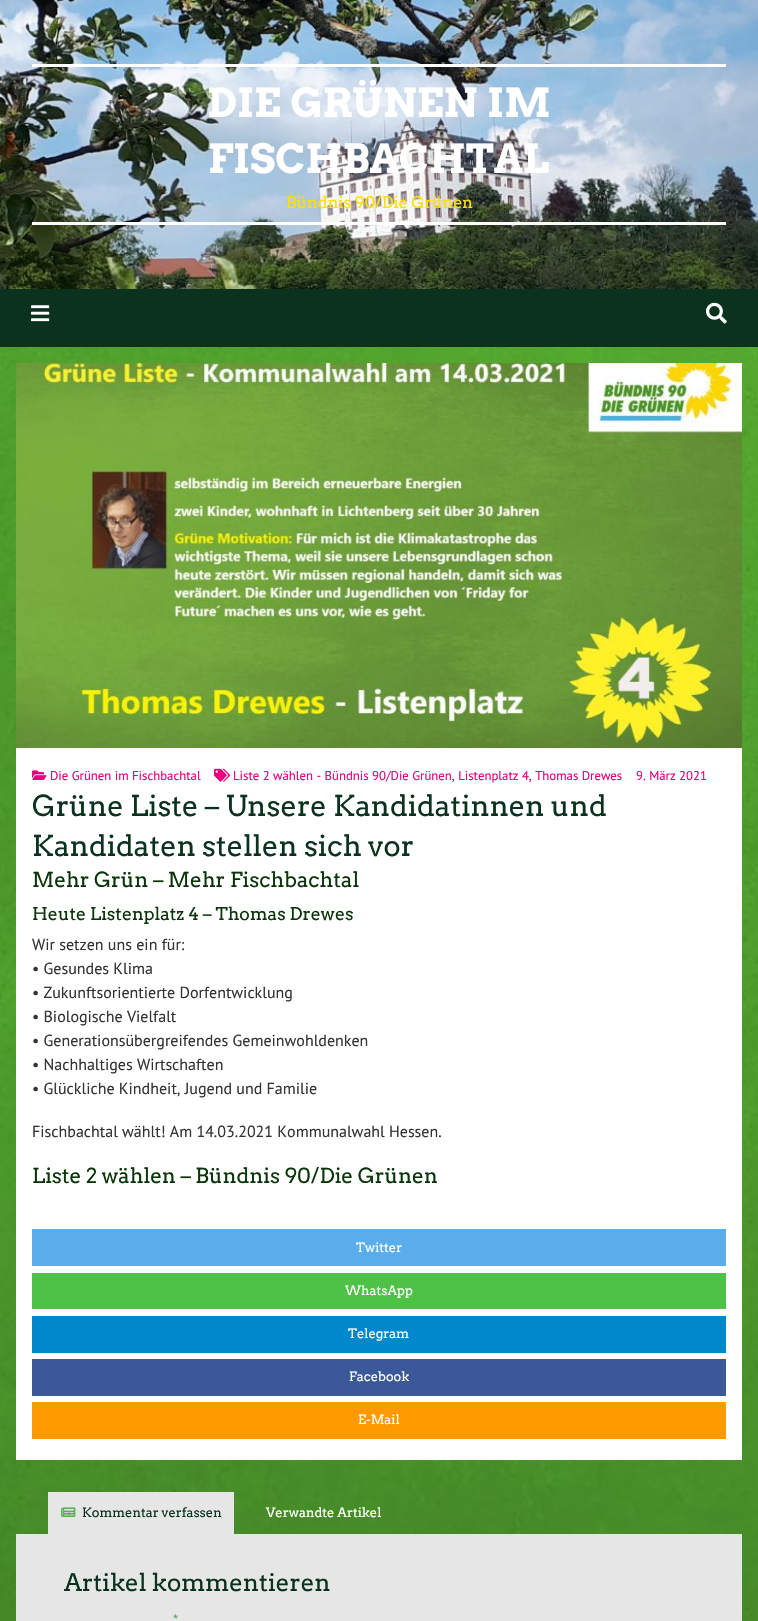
#include "include/core/SkBlurTypes.h"
#include "include/core/SkCanvas.h"
#include "include/core/SkData.h"
#include "include/core/SkFont.h"
#include "include/core/SkFontMgr.h"
#include "include/core/SkImage.h"
#include "include/core/SkMaskFilter.h"
#include "include/core/SkPaint.h"
#include "include/core/SkPathBuilder.h"
#include "include/core/SkTextBlob.h"
#include "include/effects/SkDashPathEffect.h"
#include "include/effects/SkGradientShader.h"
#include "include/utils/SkParsePath.h"

extern sk_sp<SkFontMgr> fontMgr;

void draw(SkCanvas* canvas) {
    SkPaint p;
    p.setAntiAlias(true);
    auto font = [&](const char* family, int weight, float size, bool italic = false) {
        SkFontStyle style(weight, SkFontStyle::kNormal_Width,
            italic ? SkFontStyle::kItalic_Slant : SkFontStyle::kUpright_Slant);
        SkFont result(fontMgr->matchFamilyStyle(family, style), size);
        result.setSubpixel(true);
        return result;
    };
    auto drawPhoto = [&](const char* path, float l, float t, float r, float b) {
        auto image = SkImages::DeferredFromEncodedData(SkData::MakeFromFileName(path));
        canvas->drawImageRect(image, SkRect::MakeLTRB(l, t, r, b), SkSamplingOptions());
    };
    canvas->clear(0xFFFFFFFF);
    drawPhoto("media/1.png", 0, 347, 758, 1621);
    drawPhoto("media/2.png", 0, 0, 758, 289);
    p.setColor(0xFFFFFFFF);
    canvas->drawRect(SkRect::MakeLTRB(32, 64, 726, 67), p);
    canvas->drawRect(SkRect::MakeLTRB(32, 222, 726, 225), p);
    auto font1 = font("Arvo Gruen", 400, 40);
    canvas->drawString("DIE GRÜNEN IM", 207, 117, font1, p);
    canvas->drawString("FISCHBACHTAL", 208, 173, font1, p);
    auto font2 = font("Arvo", 400, 16);
    p.setColor(0xFFFFE000);
    canvas->drawString("Bündnis 90/Die Grünen", 286, 208, font2, p);
    p.setColor(0xFF0A321E);
    canvas->drawRect(SkRect::MakeLTRB(0, 289, 758, 347), p);
    drawPhoto("media/3.png", 31, 305, 50, 322);
    drawPhoto("media/4.png", 706, 302, 727, 324);
    drawPhoto("media/5.png", 16, 363, 742, 748);
    p.setColor(0xFFFFFFFF);
    canvas->drawRect(SkRect::MakeLTRB(16, 748, 742, 1460), p);
    drawPhoto("media/6.png", 32, 770, 47, 780);
    auto font3 = font("PT Sans", 400, 12.8f);
    p.setColor(0xFFE6007E);
    canvas->drawString("Die Grünen im Fischbachtal", 50, 780, font3, p);
    drawPhoto("media/7.png", 214, 768, 230, 782);
    canvas->drawString("Liste 2 wählen - Bündnis 90/Die Grünen, Listenplatz 4, Thomas Drewes", 233, 780, font3, p);
    canvas->drawString("9. März 2021", 636, 780, font3, p);
    auto font4 = font("Arvo", 400, 28.75f);
    p.setColor(0xFF0A321E);
    canvas->drawString("Grüne Liste – Unsere Kandidatinnen und", 32, 816, font4, p);
    canvas->drawString("Kandidaten stellen sich vor", 32, 856, font4, p);
    auto font5 = font("Arvo", 400, 20.75f);
    p.setColor(0xFF0A350A);
    canvas->drawString("Mehr Grün – Mehr Fischbachtal", 32, 887, font5, p);
    auto font6 = font("Arvo", 400, 17.6f);
    canvas->drawString("Heute Listenplatz 4 – Thomas Drewes", 32, 920, font6, p);
    auto font7 = font("PT Sans", 400, 16);
    p.setColor(0xFF333333);
    {
        const struct { const char* s; float x, y; } items[] = {
            {"Wir setzen uns ein für:", 32, 950},
            {"• Gesundes Klima", 32, 974},
            {"• Zukunftsorientierte Dorfentwicklung", 32, 998},
            {"• Biologische Vielfalt", 32, 1022},
            {"• Generationsübergreifendes Gemeinwohldenken", 32, 1046},
            {"• Nachhaltiges Wirtschaften", 32, 1070},
            {"• Glückliche Kindheit, Jugend und Familie", 32, 1094},
            {"Fischbachtal wählt! Am 14.03.2021 Kommunalwahl Hessen.", 32, 1137},
        };
        for (auto [s, x, y] : items) {
            canvas->drawString(s, x, y, font7, p);
        }
    }
    p.setColor(0xFF0A350A);
    canvas->drawString("Liste 2 wählen – Bündnis 90/Die Grünen", 32, 1183, font5, p);
    p.setColor(0xFF59ADEB);
    canvas->drawRect(SkRect::MakeLTRB(32, 1229, 726, 1266), p);
    auto font8 = font("Arvo", 400, 12.8f);
    p.setColor(0xFFFFFFFF);
    canvas->drawString("Twitter", 356, 1252, font8, p);
    p.setColor(0xFF4DC247);
    canvas->drawRect(SkRect::MakeLTRB(32, 1273, 726, 1309), p);
    p.setColor(0xFFFFFFFF);
    canvas->drawString("WhatsApp", 345, 1295, font8, p);
    p.setColor(0xFF0088CC);
    canvas->drawRect(SkRect::MakeLTRB(32, 1316, 726, 1353), p);
    p.setColor(0xFFFFFFFF);
    canvas->drawString("Telegram", 348, 1338, font8, p);
    p.setColor(0xFF3B5998);
    canvas->drawRect(SkRect::MakeLTRB(32, 1359, 726, 1396), p);
    p.setColor(0xFFFFFFFF);
    canvas->drawString("Facebook", 349, 1381, font8, p);
    p.setColor(0xFFFF9900);
    canvas->drawRect(SkRect::MakeLTRB(32, 1402, 726, 1439), p);
    p.setColor(0xFFFFFFFF);
    canvas->drawString("E-Mail", 358, 1424, font8, p);
    p.setColor(0xFFE6E6E6);
    canvas->drawRect(SkRect::MakeLTRB(48, 1492, 234, 1534), p);
    drawPhoto("media/8.png", 61, 1507, 76, 1517);
    p.setColor(0xFF0A321E);
    canvas->drawString("Kommentar verfassen", 82, 1517, font8, p);
    p.setColor(0xFFFFFFFF);
    canvas->drawString("Verwandte Artikel", 266, 1517, font8, p);
    p.setColor(0xFFE6E6E6);
    canvas->drawRect(SkRect::MakeLTRB(16, 1534, 742, 1621), p);
    auto font9 = font("Arvo", 400, 24);
    p.setColor(0xFF0A321E);
    canvas->drawString("Artikel kommentieren", 64, 1591, font9, p);
    p.setColor(0xFF5DAE59);
    canvas->drawString("*", 173, 1624, font8, p);
}
